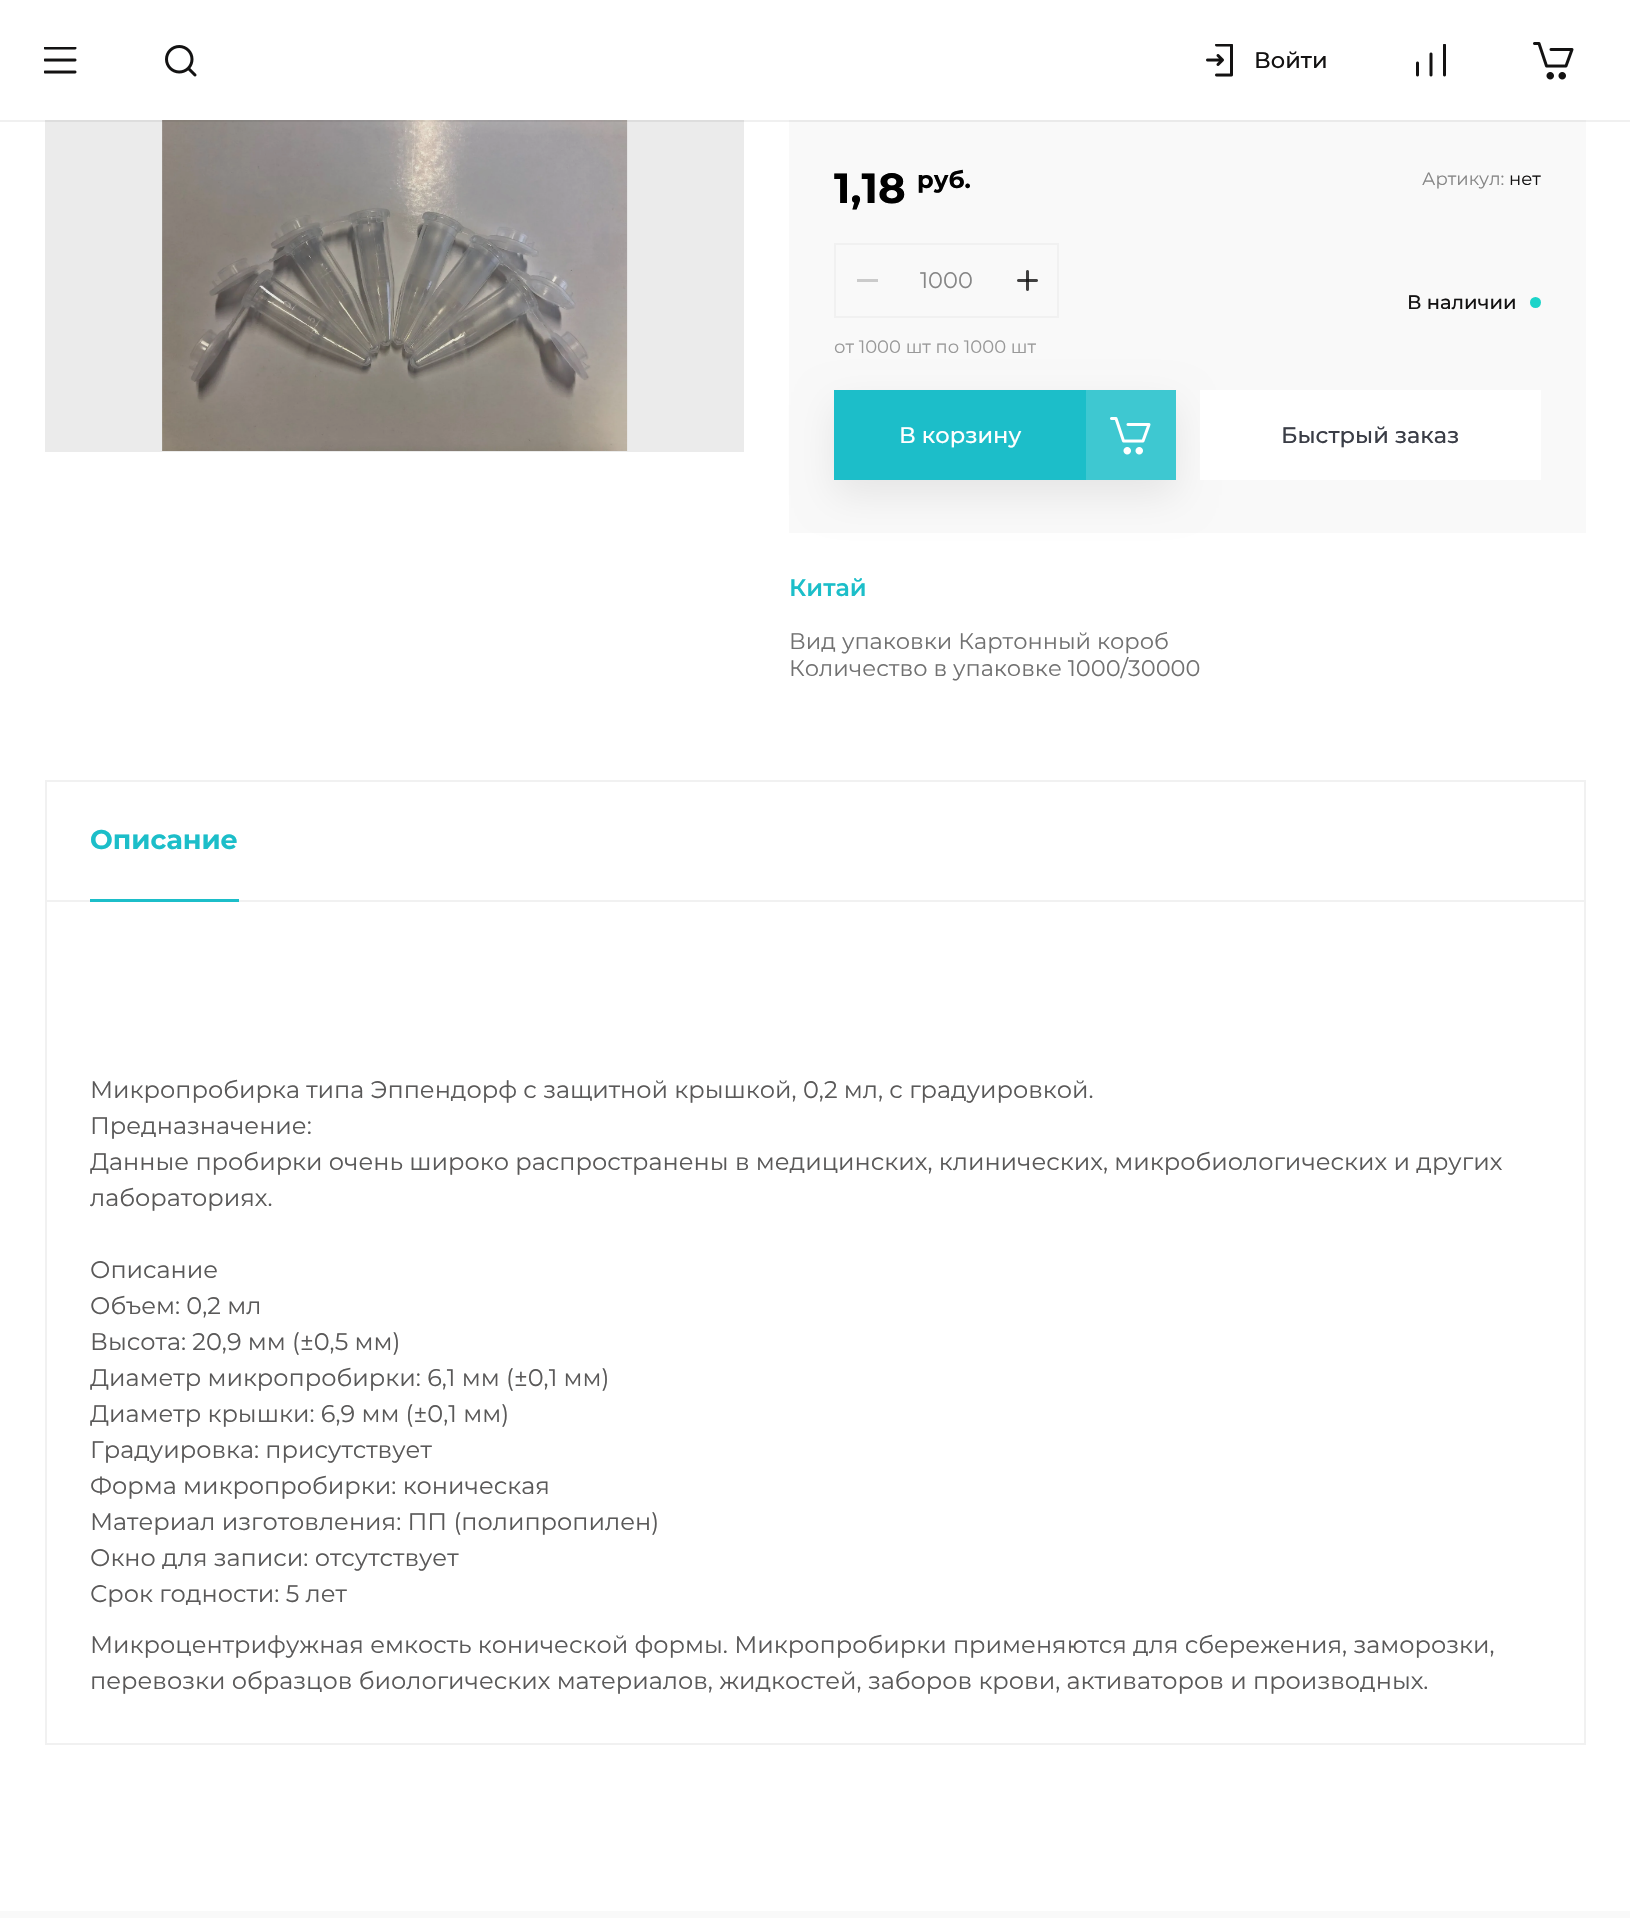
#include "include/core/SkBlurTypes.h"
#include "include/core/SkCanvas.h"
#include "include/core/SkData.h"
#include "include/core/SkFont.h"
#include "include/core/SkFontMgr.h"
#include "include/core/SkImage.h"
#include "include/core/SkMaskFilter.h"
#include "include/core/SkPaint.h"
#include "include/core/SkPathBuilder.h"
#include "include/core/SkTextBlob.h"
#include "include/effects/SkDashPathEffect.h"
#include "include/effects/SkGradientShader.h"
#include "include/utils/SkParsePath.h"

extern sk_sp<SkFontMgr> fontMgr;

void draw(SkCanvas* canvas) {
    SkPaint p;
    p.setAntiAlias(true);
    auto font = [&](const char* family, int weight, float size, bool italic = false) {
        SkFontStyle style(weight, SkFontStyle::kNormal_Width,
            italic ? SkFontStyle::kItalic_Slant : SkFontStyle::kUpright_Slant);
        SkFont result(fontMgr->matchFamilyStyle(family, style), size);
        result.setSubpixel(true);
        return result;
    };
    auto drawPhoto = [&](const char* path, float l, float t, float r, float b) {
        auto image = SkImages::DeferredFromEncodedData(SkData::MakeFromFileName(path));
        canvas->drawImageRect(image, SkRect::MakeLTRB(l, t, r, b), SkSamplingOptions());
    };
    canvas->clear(0xFFFFFFFF);
    p.setColor(0xFFEBEBEB);
    canvas->drawRect(SkRect::MakeLTRB(45, 120, 744, 452), p);
    drawPhoto("media/6.png", 162, 120, 628, 451);
    p.setColor(0xFFF9F9F9);
    canvas->drawRect(SkRect::MakeLTRB(789, 120, 1586, 533), p);
    p.setColor(0x0F000000);
    canvas->drawPath(SkPathBuilder().moveTo(0, 120).lineTo(0, 122).lineTo(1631, 122).lineTo(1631, 2).lineTo(1630, 2).lineTo(1630, 120).close().detach(), p);
    drawPhoto("media/1.png", 44, 47, 77, 74);
    drawPhoto("media/2.png", 165, 45, 197, 77);
    drawPhoto("media/3.png", 1206, 44, 1233, 77);
    auto font1 = font("Montserrat", 500, 22.5f);
    p.setColor(0xFF131212);
    canvas->drawString("Войти", 1254, 68, font1, p);
    drawPhoto("media/4.png", 1416, 44, 1446, 77);
    drawPhoto("media/5.png", 1533, 42, 1574, 80);
    auto font2 = font("Montserrat", 700, 42);
    p.setColor(0xFF000000);
    canvas->drawString("1,18", 834, 203, font2, p);
    auto font3 = font("Montserrat", 700, 24);
    canvas->drawString("руб.", 917, 188, font3, p);
    auto font4 = font("Montserrat", 400, 18);
    p.setColor(0xFF868686);
    canvas->drawString("Артикул:", 1422, 185, font4, p);
    p.setColor(0xFF131212);
    canvas->drawString("нет", 1509, 185, font4, p);
    p.setStyle(SkPaint::kStroke_Style);
    p.setStrokeWidth(2);
    p.setColor(0xFFF1F1F1);
    canvas->drawRect(SkRect::MakeLTRB(835, 244, 1058, 317), p);
    p.setStyle(SkPaint::kFill_Style);
    p.setColor(0xFFCBCBCB);
    canvas->drawRect(SkRect::MakeLTRB(857, 279, 878, 282), p);
    auto font5 = font("Montserrat", 400, 22.5f);
    p.setColor(0xFF868686);
    canvas->drawString("1000", 920, 288, font5, p);
    drawPhoto("media/7.png", 1017, 270, 1038, 291);
    p.setColor(0xFF999999);
    canvas->drawString("от 1000 шт по 1000 шт", 834, 353, font4, p);
    auto font6 = font("Montserrat", 500, 19.5f);
    p.setColor(0xFF131212);
    canvas->drawString("В наличии", 1407, 309, font6, p);
    p.setColor(0xFF1BD4C9);
    canvas->drawCircle(1535.5f, 302.5f, 5.5f, p);
    p.setColor(0x14000000);
    p.setMaskFilter(SkMaskFilter::MakeBlur(kNormal_SkBlurStyle, 19));
    canvas->drawRect(SkRect::MakeLTRB(834, 405, 1176, 495), p);
    p.setMaskFilter(nullptr);
    p.setColor(0xFF1CBEC9);
    canvas->drawRect(SkRect::MakeLTRB(834, 390, 1086, 480), p);
    p.setColor(0xFFFFFFFF);
    canvas->drawString("В корзину", 899, 443, font1, p);
    p.setColor(0xFF3EC8D1);
    canvas->drawRect(SkRect::MakeLTRB(1086, 390, 1176, 480), p);
    drawPhoto("media/8.png", 1110, 417, 1151, 455);
    p.setColor(0xFFFFFFFF);
    canvas->drawRect(SkRect::MakeLTRB(1200, 390, 1541, 480), p);
    p.setColor(0xFF3A3D46);
    canvas->drawString("Быстрый заказ", 1281, 443, font1, p);
    auto font7 = font("Montserrat", 600, 24);
    p.setColor(0xFF1CBEC9);
    canvas->drawString("Китай", 789, 596, font7, p);
    p.setColor(0xFF717171);
    canvas->drawString("Вид упаковки Картонный короб", 789, 649, font5, p);
    canvas->drawString("Количество в упаковке 1000/30000", 789, 676, font5, p);
    p.setStyle(SkPaint::kStroke_Style);
    p.setColor(0xFFF1F1F1);
    canvas->drawRect(SkRect::MakeLTRB(46, 781, 1585, 1744), p);
    p.setStyle(SkPaint::kFill_Style);
    canvas->drawRect(SkRect::MakeLTRB(45, 900, 1586, 902), p);
    auto font8 = font("Montserrat", 700, 27);
    p.setColor(0xFF1CBEC9);
    canvas->drawString("Описание", 90, 849, font8, p);
    canvas->drawRect(SkRect::MakeLTRB(90, 899, 239, 902), p);
    auto font9 = font("Montserrat", 400, 24);
    p.setColor(0xFF5A5959);
    {
        const struct { const char* s; float x, y; } items[] = {
            {"Микропробирка типа Эппендорф с защитной крышкой, 0,2 мл, с градуировкой.", 90, 1098},
            {"Предназначение:", 90, 1134},
            {"Данные пробирки очень широко распространены в медицинских, клинических, микробиологических и других", 90, 1170},
            {"лабораториях.", 90, 1206},
            {"Описание", 90, 1278},
            {"Объем: 0,2 мл", 90, 1314},
            {"Высота: 20,9 мм (±0,5 мм)", 90, 1350},
            {"Диаметр микропробирки: 6,1 мм (±0,1 мм)", 90, 1386},
            {"Диаметр крышки: 6,9 мм (±0,1 мм)", 90, 1422},
            {"Градуировка: присутствует", 90, 1458},
            {"Форма микропробирки: коническая", 90, 1494},
            {"Материал изготовления: ПП (полипропилен)", 90, 1530},
            {"Окно для записи: отсутствует", 90, 1566},
            {"Срок годности: 5 лет", 90, 1602},
            {"Микроцентрифужная емкость конической формы. Микропробирки применяются для сбережения, заморозки,", 90, 1653},
            {"перевозки образцов биологических материалов, жидкостей, заборов крови, активаторов и производных.", 90, 1689},
        };
        for (auto [s, x, y] : items) {
            canvas->drawString(s, x, y, font9, p);
        }
    }
    p.setColor(0xFFF9F9F9);
    canvas->drawRect(SkRect::MakeLTRB(0, 1911, 1630, 1918), p);
}
